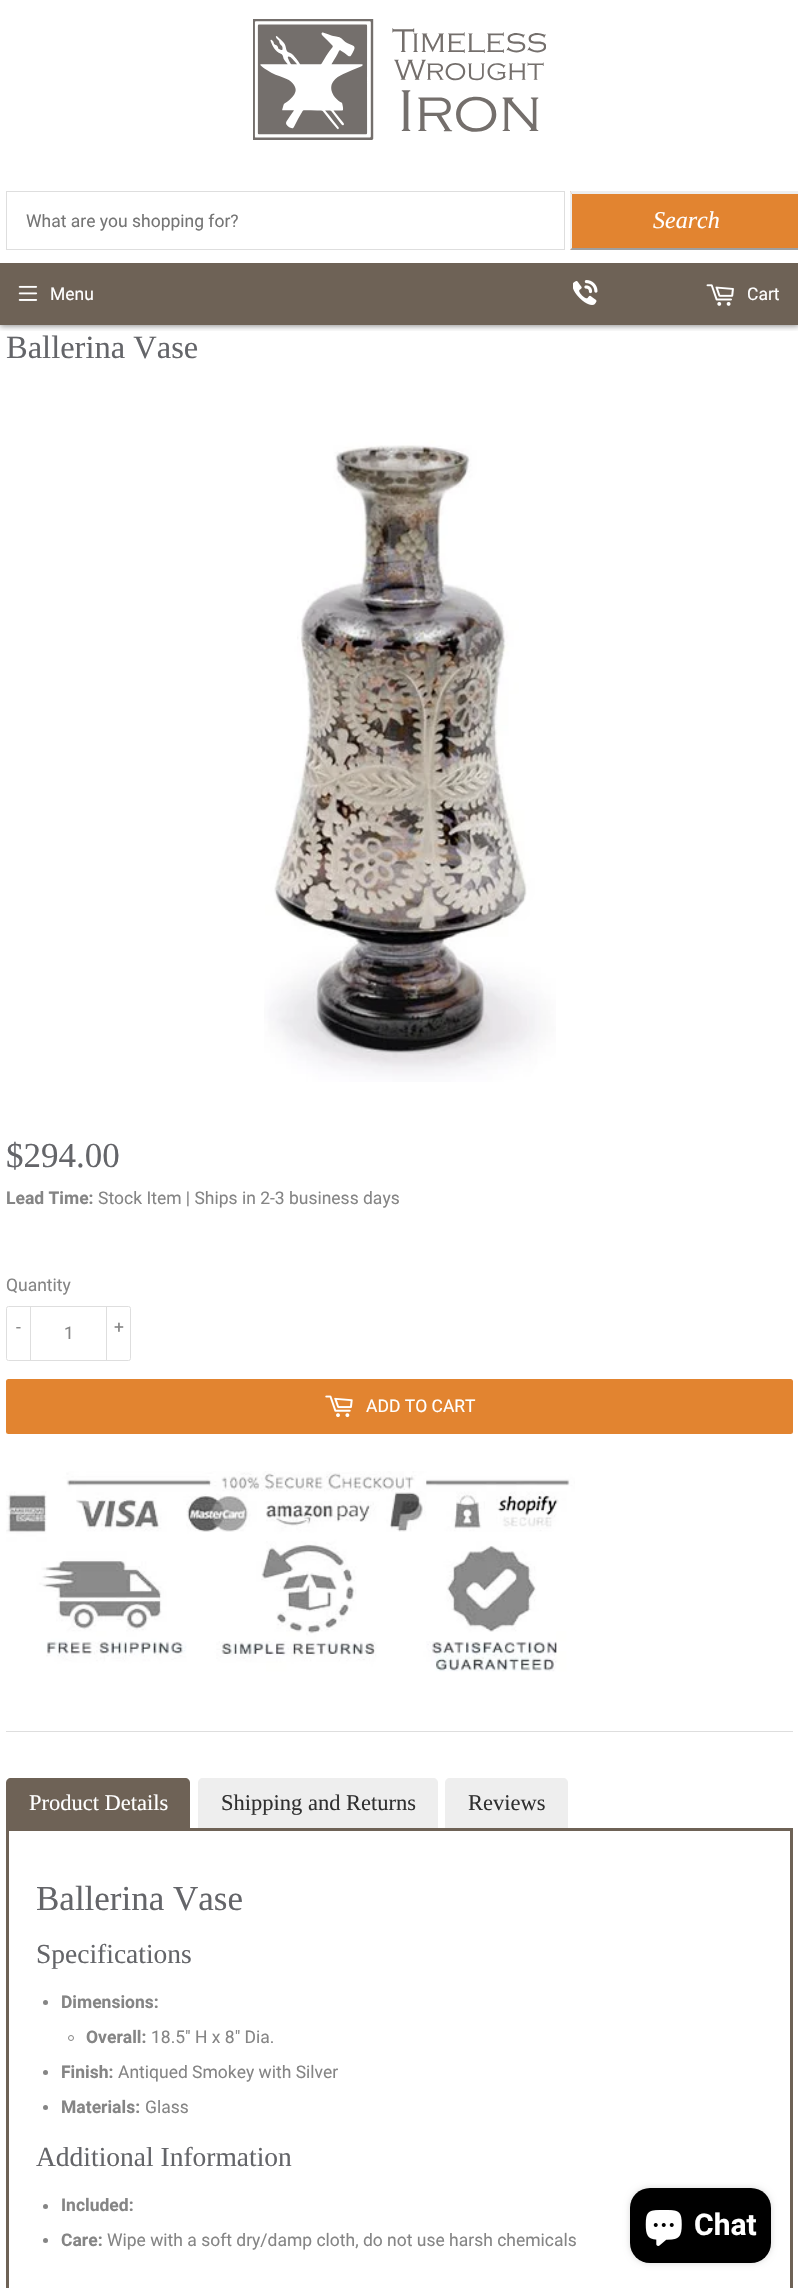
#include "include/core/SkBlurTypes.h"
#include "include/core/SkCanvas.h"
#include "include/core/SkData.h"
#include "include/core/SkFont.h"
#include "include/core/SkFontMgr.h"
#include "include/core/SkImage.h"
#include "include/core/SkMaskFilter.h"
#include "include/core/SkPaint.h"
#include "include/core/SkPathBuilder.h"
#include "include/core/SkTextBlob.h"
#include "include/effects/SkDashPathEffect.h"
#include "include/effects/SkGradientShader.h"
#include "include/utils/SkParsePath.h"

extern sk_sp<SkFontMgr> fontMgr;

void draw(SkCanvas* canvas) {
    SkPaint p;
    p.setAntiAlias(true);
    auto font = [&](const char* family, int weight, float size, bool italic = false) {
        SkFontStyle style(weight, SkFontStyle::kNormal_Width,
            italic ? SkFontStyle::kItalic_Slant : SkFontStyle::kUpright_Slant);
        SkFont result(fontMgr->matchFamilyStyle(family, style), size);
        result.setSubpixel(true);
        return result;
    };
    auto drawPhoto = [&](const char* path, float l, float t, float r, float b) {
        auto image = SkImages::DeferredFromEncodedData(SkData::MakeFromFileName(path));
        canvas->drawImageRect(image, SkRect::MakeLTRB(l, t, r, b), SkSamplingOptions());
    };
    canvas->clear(0xFFFFFFFF);
    canvas->save();
    canvas->clipRect(SkRect::MakeLTRB(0, 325, 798, 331));
    p.setColor(0x73000000);
    p.setMaskFilter(SkMaskFilter::MakeBlur(kNormal_SkBlurStyle, 3));
    canvas->drawRect(SkRect::MakeLTRB(0, 1, 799, 326), p);
    p.setMaskFilter(nullptr);
    canvas->restore();
    drawPhoto("media/1.png", 253, 19, 546, 140);
    p.setStyle(SkPaint::kStroke_Style);
    p.setStrokeWidth(1);
    p.setColor(0xFFDEDEDE);
    canvas->drawRect(SkRect::MakeLTRB(6.5f, 191.5f, 564.5f, 249.5f), p);
    auto font1 = font("Roboto", 400, 17.5f);
    p.setStyle(SkPaint::kFill_Style);
    p.setColor(0xFF757575);
    canvas->drawString("What are you shopping for?", 26, 227, font1, p);
    p.setColor(0xFFE28430);
    canvas->drawRect(SkRect::MakeLTRB(570, 191, 798, 250), p);
    p.setColor(0xFFEEEEEE);
    canvas->drawPath(SkPathBuilder().moveTo(570, 191).lineTo(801, 191).lineTo(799, 194).lineTo(572, 194).close().detach(), p);
    p.setColor(0xFF9F9F9F);
    canvas->drawPath(SkPathBuilder().moveTo(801, 250).lineTo(570, 250).lineTo(572, 248).lineTo(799, 248).close().detach(), p);
    p.setColor(0xFFEEEEEE);
    canvas->drawPath(SkPathBuilder().moveTo(570, 250).lineTo(570, 191).lineTo(572, 194).lineTo(572, 248).close().detach(), p);
    auto font2 = font("Liberation Serif", 400, 24, true);
    p.setColor(0xFFFFFFFF);
    canvas->drawString("Search", 653, 228, font2, p);
    p.setColor(0xFF6E6256);
    canvas->drawRect(SkRect::MakeLTRB(0, 263, 798, 325), p);
    drawPhoto("media/2.png", 18, 285, 38, 301);
    p.setColor(0xFFFFFFFF);
    canvas->drawString("Menu", 50, 300, font1, p);
    drawPhoto("media/3.png", 573, 280, 598, 305);
    drawPhoto("media/4.png", 706, 284, 734, 306);
    canvas->drawString("Cart", 747, 300, font1, p);
    auto font3 = font("Liberation Serif", 400, 32.5f);
    p.setColor(0xFF646569);
    canvas->drawString("Ballerina Vase", 6, 358, font3, p);
    drawPhoto("media/5.png", 264, 440, 556, 1082);
    auto font4 = font("Liberation Serif", 400, 35);
    canvas->drawString("$294.00", 6, 1167, font4, p);
    auto font5 = font("Roboto", 700, 17.5f);
    p.setColor(0xFF858585);
    canvas->drawString("Lead Time:", 6, 1204, font5, p);
    canvas->drawString("Stock Item | Ships in 2-3 business days", 98, 1204, font1, p);
    canvas->drawString("Quantity", 6, 1291, font1, p);
    p.setStyle(SkPaint::kStroke_Style);
    p.setColor(0xFFDEDEDE);
    canvas->drawRoundRect(SkRect::MakeLTRB(6.5f, 1306.5f, 130.5f, 1360.5f), 2, 2, p);
    p.setStyle(SkPaint::kFill_Style);
    canvas->drawRect(SkRect::MakeLTRB(30, 1306, 31, 1361), p);
    p.setColor(0xFF858585);
    canvas->drawString("-", 16, 1333, font1, p);
    canvas->drawString("1", 64, 1339, font1, p);
    p.setColor(0xFFDEDEDE);
    canvas->drawRect(SkRect::MakeLTRB(106, 1306, 107, 1361), p);
    p.setColor(0xFF858585);
    canvas->drawString("+", 114, 1333, font1, p);
    p.setColor(0xFFE28430);
    canvas->drawRoundRect(SkRect::MakeLTRB(6, 1379, 793, 1434), 2.5f, 2.5f, p);
    drawPhoto("media/6.png", 325, 1395, 353, 1418);
    p.setColor(0xFFFFFFFF);
    canvas->drawString("ADD TO CART", 366, 1412, font1, p);
    drawPhoto("media/7.png", 6, 1471, 575, 1672);
    p.setColor(0xFFDEDEDE);
    canvas->drawRect(SkRect::MakeLTRB(6, 1731, 793, 1732), p);
    p.setColor(0xFF6E6256);
    canvas->drawPath(SkPathBuilder().moveTo(11, 1778).lineTo(185, 1778).cubicTo(188, 1778, 190, 1780, 190, 1783).lineTo(190, 1828).lineTo(6, 1828).lineTo(6, 1783).cubicTo(6, 1780, 8, 1778, 11, 1778).close().detach(), p);
    auto font6 = font("Liberation Serif", 400, 22.5f);
    p.setColor(0xFFFFFFFF);
    canvas->drawString("Product Details", 29, 1810, font6, p);
    p.setColor(0xFFEEEEEE);
    canvas->drawPath(SkPathBuilder().moveTo(203, 1778).lineTo(433, 1778).cubicTo(436, 1778, 438, 1780, 438, 1783).lineTo(438, 1828).lineTo(198, 1828).lineTo(198, 1783).cubicTo(198, 1780, 200, 1778, 203, 1778).close().detach(), p);
    p.setColor(0xFF303030);
    canvas->drawString("Shipping and Returns", 221, 1810, font6, p);
    p.setColor(0xFFEEEEEE);
    canvas->drawPath(SkPathBuilder().moveTo(450, 1778).lineTo(563, 1778).cubicTo(566, 1778, 568, 1780, 568, 1783).lineTo(568, 1828).lineTo(445, 1828).lineTo(445, 1783).cubicTo(445, 1780, 447, 1778, 450, 1778).close().detach(), p);
    p.setColor(0xFF303030);
    canvas->drawString("Reviews", 468, 1810, font6, p);
    p.setStyle(SkPaint::kStroke_Style);
    p.setStrokeWidth(3);
    p.setColor(0xFF6E6256);
    canvas->drawRect(SkRect::MakeLTRB(7.5f, 1829.5f, 791.5f, 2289.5f), p);
    p.setStyle(SkPaint::kFill_Style);
    p.setColor(0xFF646569);
    canvas->drawString("Ballerina Vase", 36, 1910, font4, p);
    auto font7 = font("Liberation Serif", 400, 27.5f);
    canvas->drawString("Specifications", 36, 1963, font7, p);
    p.setColor(0xFF858585);
    canvas->drawCircle(45.5f, 2002.5f, 2.5f, p);
    canvas->drawString("Dimensions:", 61, 2008, font5, p);
    p.setStyle(SkPaint::kStroke_Style);
    p.setStrokeWidth(1);
    canvas->drawCircle(71, 2038, 2.5f, p);
    p.setStyle(SkPaint::kFill_Style);
    canvas->drawString("Overall:", 86, 2043, font5, p);
    canvas->drawString("18.5\" H x 8\" Dia.", 151, 2043, font1, p);
    canvas->drawCircle(45.5f, 2072.5f, 2.5f, p);
    canvas->drawString("Finish:", 61, 2078, font5, p);
    canvas->drawString("Antiqued Smokey with Silver", 118, 2078, font1, p);
    canvas->drawCircle(45.5f, 2107.5f, 2.5f, p);
    canvas->drawString("Materials:", 61, 2113, font5, p);
    canvas->drawString("Glass", 145, 2113, font1, p);
    p.setColor(0xFF646569);
    canvas->drawString("Additional Information", 36, 2166, font7, p);
    p.setColor(0xFF858585);
    canvas->drawCircle(45.5f, 2206.5f, 2.5f, p);
    canvas->drawString("Included:", 61, 2211, font5, p);
    canvas->drawCircle(45.5f, 2240.5f, 2.5f, p);
    canvas->drawString("Care:", 61, 2246, font5, p);
    canvas->drawString("Wipe with a soft dry/damp cloth, do not use harsh chemicals", 107, 2246, font1, p);
    p.setColor(0x26000000);
    p.setMaskFilter(SkMaskFilter::MakeBlur(kNormal_SkBlurStyle, 3));
    canvas->drawRoundRect(SkRect::MakeLTRB(630, 2188, 771, 2263), 20, 20, p);
    p.setMaskFilter(nullptr);
    p.setColor(0xFF000000);
    canvas->drawRoundRect(SkRect::MakeLTRB(630, 2188, 771, 2263), 20, 20, p);
    drawPhoto("media/8.png", 645, 2210, 682, 2246);
    auto font8 = font("Roboto", 700, 30);
    p.setColor(0xFFFFFFFF);
    canvas->drawString("Chat", 694, 2235, font8, p);
}
